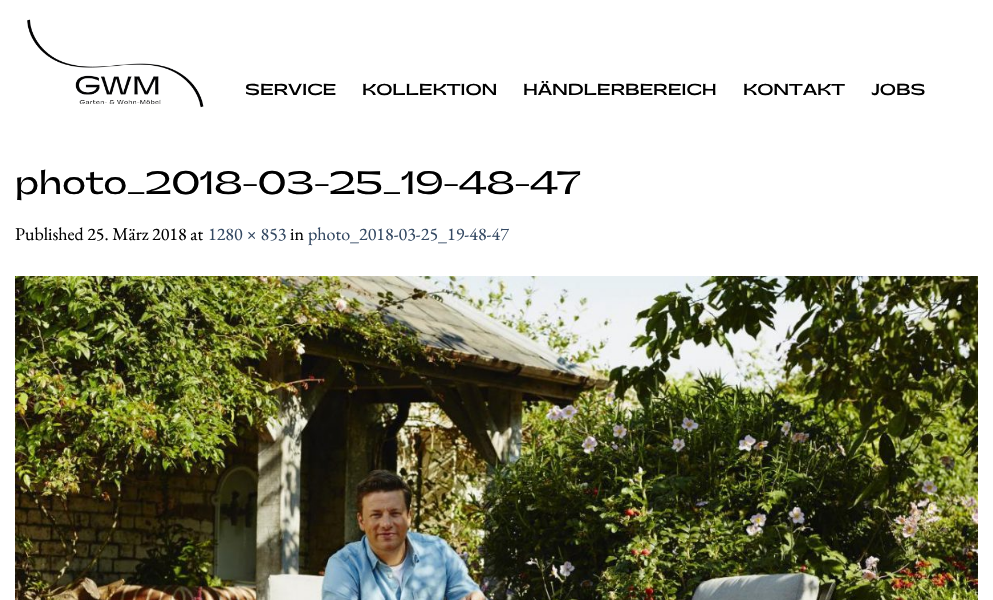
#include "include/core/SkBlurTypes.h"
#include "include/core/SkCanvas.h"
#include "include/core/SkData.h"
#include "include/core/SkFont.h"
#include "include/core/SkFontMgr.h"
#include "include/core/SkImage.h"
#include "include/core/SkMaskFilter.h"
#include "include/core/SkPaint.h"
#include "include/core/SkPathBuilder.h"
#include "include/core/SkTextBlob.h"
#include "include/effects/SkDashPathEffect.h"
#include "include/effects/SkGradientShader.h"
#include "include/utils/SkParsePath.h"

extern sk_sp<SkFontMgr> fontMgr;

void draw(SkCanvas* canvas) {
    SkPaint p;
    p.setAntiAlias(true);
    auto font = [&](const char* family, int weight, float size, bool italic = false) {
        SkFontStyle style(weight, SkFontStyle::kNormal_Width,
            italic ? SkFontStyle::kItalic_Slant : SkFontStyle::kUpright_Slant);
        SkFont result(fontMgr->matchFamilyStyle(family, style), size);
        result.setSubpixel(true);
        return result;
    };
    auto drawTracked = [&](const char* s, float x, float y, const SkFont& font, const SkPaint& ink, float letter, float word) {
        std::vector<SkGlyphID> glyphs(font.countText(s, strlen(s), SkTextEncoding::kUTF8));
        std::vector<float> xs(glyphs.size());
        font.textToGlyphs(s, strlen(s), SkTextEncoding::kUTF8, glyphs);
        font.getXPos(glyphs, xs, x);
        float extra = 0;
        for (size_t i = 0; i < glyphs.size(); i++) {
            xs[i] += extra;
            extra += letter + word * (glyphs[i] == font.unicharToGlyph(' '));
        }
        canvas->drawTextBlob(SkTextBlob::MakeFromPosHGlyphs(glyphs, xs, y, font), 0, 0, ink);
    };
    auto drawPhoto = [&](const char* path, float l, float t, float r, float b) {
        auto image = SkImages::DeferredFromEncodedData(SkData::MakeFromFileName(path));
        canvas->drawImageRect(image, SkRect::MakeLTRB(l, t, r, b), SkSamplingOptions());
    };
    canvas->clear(0xFFFFFFFF);
    drawPhoto("media/1.png", 27, 19, 204, 108);
    auto font1 = font("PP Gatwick", 700, 14.5f);
    p.setColor(0xFF000000);
    {
        const struct { const char* s; float x, y; } items[] = {
            {"SERVICE", 245, 95},
            {"KOLLEKTION", 362, 95},
            {"HÄNDLERBEREICH", 523, 95},
            {"KONTAKT", 743, 95},
            {"JOBS", 871, 95},
        };
        for (auto [s, x, y] : items) {
            drawTracked(s, x, y, font1, p, 0.25f, 0);
        }
    }
    auto font2 = font("PP Gatwick", 500, 30.75f);
    canvas->drawString("photo_2018-03-25_19-48-47", 15, 194, font2, p);
    auto font3 = font("EB Garamond", 400, 18);
    canvas->drawString("Published 25. März 2018 at", 15, 240, font3, p);
    p.setColor(0xFF334862);
    canvas->drawString("1280 × 853", 208, 240, font3, p);
    p.setColor(0xFF000000);
    canvas->drawString("in", 290, 240, font3, p);
    p.setColor(0xFF334862);
    canvas->drawString("photo_2018-03-25_19-48-47", 308, 240, font3, p);
    drawPhoto("media/2.png", 15, 276, 978, 600);
}
